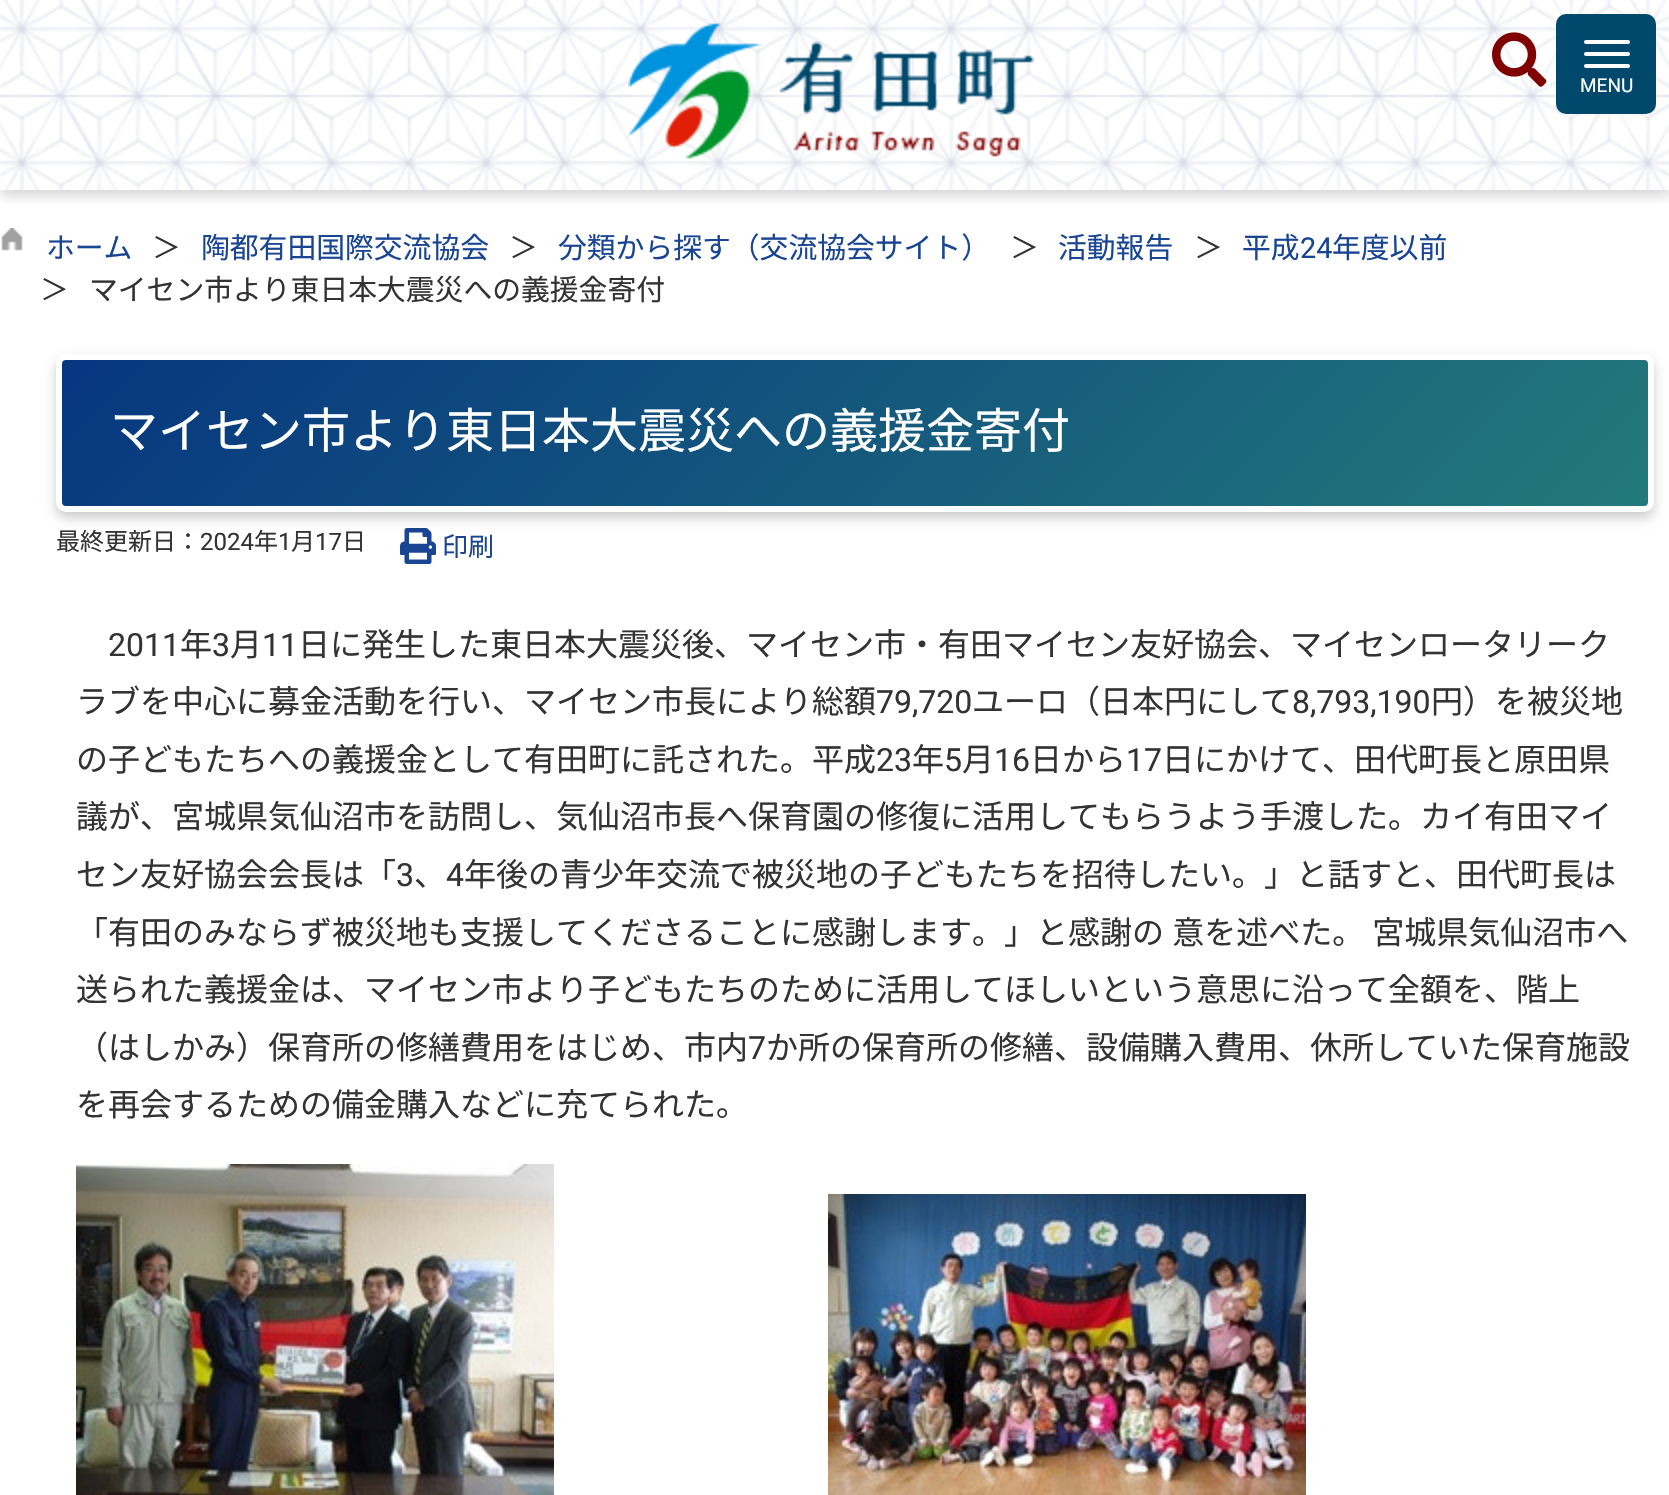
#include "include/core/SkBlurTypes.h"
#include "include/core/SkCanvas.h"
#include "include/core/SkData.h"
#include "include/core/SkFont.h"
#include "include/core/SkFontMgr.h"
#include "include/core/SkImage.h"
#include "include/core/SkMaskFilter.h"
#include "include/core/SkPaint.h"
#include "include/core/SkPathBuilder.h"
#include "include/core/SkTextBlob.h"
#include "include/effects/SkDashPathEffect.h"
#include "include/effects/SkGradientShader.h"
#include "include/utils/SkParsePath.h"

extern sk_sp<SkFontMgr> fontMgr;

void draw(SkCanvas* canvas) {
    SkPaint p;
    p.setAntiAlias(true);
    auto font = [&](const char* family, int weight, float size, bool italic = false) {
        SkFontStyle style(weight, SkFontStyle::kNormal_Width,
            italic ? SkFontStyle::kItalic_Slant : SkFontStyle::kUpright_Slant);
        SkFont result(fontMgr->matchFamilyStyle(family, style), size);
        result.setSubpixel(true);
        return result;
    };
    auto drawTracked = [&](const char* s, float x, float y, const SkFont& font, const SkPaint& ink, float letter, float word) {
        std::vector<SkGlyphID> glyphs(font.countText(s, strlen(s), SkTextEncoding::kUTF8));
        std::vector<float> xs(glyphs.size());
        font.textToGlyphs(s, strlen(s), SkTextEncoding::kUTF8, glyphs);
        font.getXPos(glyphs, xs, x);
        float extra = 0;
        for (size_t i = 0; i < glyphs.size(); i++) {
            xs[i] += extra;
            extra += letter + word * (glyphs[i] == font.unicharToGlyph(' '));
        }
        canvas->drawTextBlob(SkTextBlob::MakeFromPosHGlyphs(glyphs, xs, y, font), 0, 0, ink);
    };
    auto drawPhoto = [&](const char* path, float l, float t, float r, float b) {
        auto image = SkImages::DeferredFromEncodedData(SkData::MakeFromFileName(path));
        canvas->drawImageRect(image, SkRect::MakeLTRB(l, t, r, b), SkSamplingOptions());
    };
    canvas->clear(0xFFFFFFFF);
    drawPhoto("media/1.png", 0, 0, 1669, 190);
    canvas->save();
    canvas->clipRect(SkRect::MakeLTRB(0, 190, 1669, 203));
    p.setColor(0x29000000);
    p.setMaskFilter(SkMaskFilter::MakeBlur(kNormal_SkBlurStyle, 6));
    canvas->drawRect(SkRect::MakeLTRB(0, 6, 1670, 196), p);
    p.setMaskFilter(nullptr);
    canvas->restore();
    drawPhoto("media/2.png", 1492, 32, 1547, 87);
    drawPhoto("media/3.png", 628, 22, 1035, 159);
    p.setColor(0xFF00496D);
    canvas->drawRoundRect(SkRect::MakeLTRB(1556, 14, 1656, 114), 10, 10, p);
    p.setColor(0xFFFFFFFF);
    canvas->drawRoundRect(SkRect::MakeLTRB(1584, 40, 1630, 44), 2, 2, p);
    canvas->drawRoundRect(SkRect::MakeLTRB(1584, 52, 1630, 56), 2, 2, p);
    canvas->drawRoundRect(SkRect::MakeLTRB(1584, 64, 1630, 68), 2, 2, p);
    auto font1 = font("Roboto", 400, 19);
    canvas->drawString("MENU", 1580, 92, font1, p);
    drawPhoto("media/4.png", 1, 228, 23, 251);
    auto font2 = font("Noto Sans JP", 400, 28.8f);
    p.setColor(0xFF194593);
    canvas->drawString("ホーム", 46, 258, font2, p);
    p.setColor(0xFF333333);
    canvas->drawString("＞", 152, 258, font2, p);
    p.setColor(0xFF194593);
    canvas->drawString("陶都有田国際交流協会", 201, 258, font2, p);
    p.setColor(0xFF333333);
    canvas->drawString("＞", 509, 258, font2, p);
    p.setColor(0xFF194593);
    canvas->drawString("分類から探す（交流協会サイト）", 558, 258, font2, p);
    p.setColor(0xFF333333);
    canvas->drawString("＞", 1010, 258, font2, p);
    p.setColor(0xFF194593);
    canvas->drawString("活動報告", 1058, 258, font2, p);
    p.setColor(0xFF333333);
    canvas->drawString("＞", 1194, 258, font2, p);
    p.setColor(0xFF194593);
    canvas->drawString("平成", 1242, 258, font2, p);
    auto font3 = font("Roboto", 400, 28.8f);
    canvas->drawString("24", 1300, 258, font3, p);
    canvas->drawString("年度以前", 1332, 258, font2, p);
    p.setColor(0xFF333333);
    canvas->drawString("＞", 40, 300, font2, p);
    canvas->drawString("マイセン市より東日本大震災への義援金寄付", 89, 300, font2, p);
    drawPhoto("media/5.png", 400, 528, 436, 564);
    p.setColor(0x33000000);
    p.setMaskFilter(SkMaskFilter::MakeBlur(kNormal_SkBlurStyle, 6));
    canvas->drawRoundRect(SkRect::MakeLTRB(56, 360, 1654, 518), 10, 10, p);
    p.setMaskFilter(nullptr);
    {
        const SkColor colors[] = {0xFF237A7A, 0xFF063680};
        const float stops[] = {0, 1};
        const SkPoint ends[] = {{1288, 866}, {422, 0}};
        p.setShader(SkGradientShader::MakeLinear(ends, colors, stops, 2, SkTileMode::kClamp));
        p.setAlpha(255);
    }
    canvas->drawRect(SkRect::MakeLTRB(62, 360, 1648, 506), p);
    p.setStyle(SkPaint::kStroke_Style);
    p.setStrokeWidth(6);
    p.setShader(nullptr);
    p.setColor(0xFFFFFFFF);
    canvas->drawRoundRect(SkRect::MakeLTRB(59, 357, 1651, 509), 7, 7, p);
    auto font4 = font("Noto Sans JP", 400, 48);
    p.setStyle(SkPaint::kFill_Style);
    canvas->drawString("マイセン市より東日本大震災への義援金寄付", 110, 448, font4, p);
    auto font5 = font("Noto Sans JP", 400, 24);
    p.setColor(0xFF333333);
    canvas->drawString("最終更新日：", 56, 550, font5, p);
    auto font6 = font("Roboto", 400, 24);
    canvas->drawString("2024", 200, 550, font6, p);
    canvas->drawString("年", 254, 550, font5, p);
    canvas->drawString("1", 278, 550, font6, p);
    canvas->drawString("月", 291, 550, font5, p);
    canvas->drawString("17", 315, 550, font6, p);
    canvas->drawString("日", 342, 550, font5, p);
    auto font7 = font("Noto Sans JP", 400, 26);
    p.setColor(0xFF194593);
    canvas->drawString("印刷", 442, 556, font7, p);
    auto font8 = font("Roboto", 400, 32);
    p.setColor(0xFF333333);
    canvas->drawString("2011", 108, 656, font8, p);
    auto font9 = font("Noto Sans JP", 400, 32);
    canvas->drawString("年", 180, 656, font9, p);
    canvas->drawString("3", 212, 656, font8, p);
    canvas->drawString("月", 230, 656, font9, p);
    canvas->drawString("11", 262, 656, font8, p);
    canvas->drawString("日に発生した東日本大震災後、マイセン市・有田マイセン友好協会、マイセンロータリーク", 298, 656, font9, p);
    canvas->drawString("ラブを中心に募金活動を行い、マイセン市長により総額", 76, 713, font9, p);
    canvas->drawString("79,720", 876, 713, font8, p);
    canvas->drawString("ユーロ（日本円にして", 972, 713, font9, p);
    canvas->drawString("8,793,190", 1292, 713, font8, p);
    canvas->drawString("円）を被災地", 1431, 713, font9, p);
    canvas->drawString("の子どもたちへの義援金として有田町に託された。平成", 76, 771, font9, p);
    canvas->drawString("23", 876, 771, font8, p);
    canvas->drawString("年", 912, 771, font9, p);
    canvas->drawString("5", 944, 771, font8, p);
    canvas->drawString("月", 962, 771, font9, p);
    canvas->drawString("16", 994, 771, font8, p);
    canvas->drawString("日から", 1030, 771, font9, p);
    canvas->drawString("17", 1126, 771, font8, p);
    {
        const struct { const char* s; float x, y; } items[] = {
            {"日にかけて、田代町長と原田県", 1162, 771},
            {"議が、宮城県気仙沼市を訪問し、気仙沼市長へ保育園の修復に活用してもらうよう手渡した。カイ有田マイ", 76, 828},
            {"セン友好協会会長は「", 76, 886},
        };
        for (auto [s, x, y] : items) {
            canvas->drawString(s, x, y, font9, p);
        }
    }
    canvas->drawString("3", 396, 886, font8, p);
    canvas->drawString("、", 414, 886, font9, p);
    canvas->drawString("4", 446, 886, font8, p);
    canvas->drawString("年後の青少年交流で被災地の子どもたちを招待したい。」と話すと、田代町長は", 464, 886, font9, p);
    drawTracked("「有田のみならず被災地も支援してくださることに感謝します。」と感謝の 意を述べた。 宮城県気仙沼市へ", 76, 944, font9, p, 0, 1);
    canvas->drawString("送られた義援金は、マイセン市より子どもたちのために活用してほしいという意思に沿って全額を、階上", 76, 1001, font9, p);
    canvas->drawString("（はしかみ）保育所の修繕費用をはじめ、市内", 76, 1059, font9, p);
    canvas->drawString("7", 748, 1059, font8, p);
    canvas->drawString("か所の保育所の修繕、設備購入費用、休所していた保育施設", 766, 1059, font9, p);
    canvas->drawString("を再会するための備金購入などに充てられた。", 76, 1116, font9, p);
    drawPhoto("media/6.png", 76, 1164, 554, 1495);
    drawPhoto("media/7.png", 828, 1194, 1306, 1495);
}
